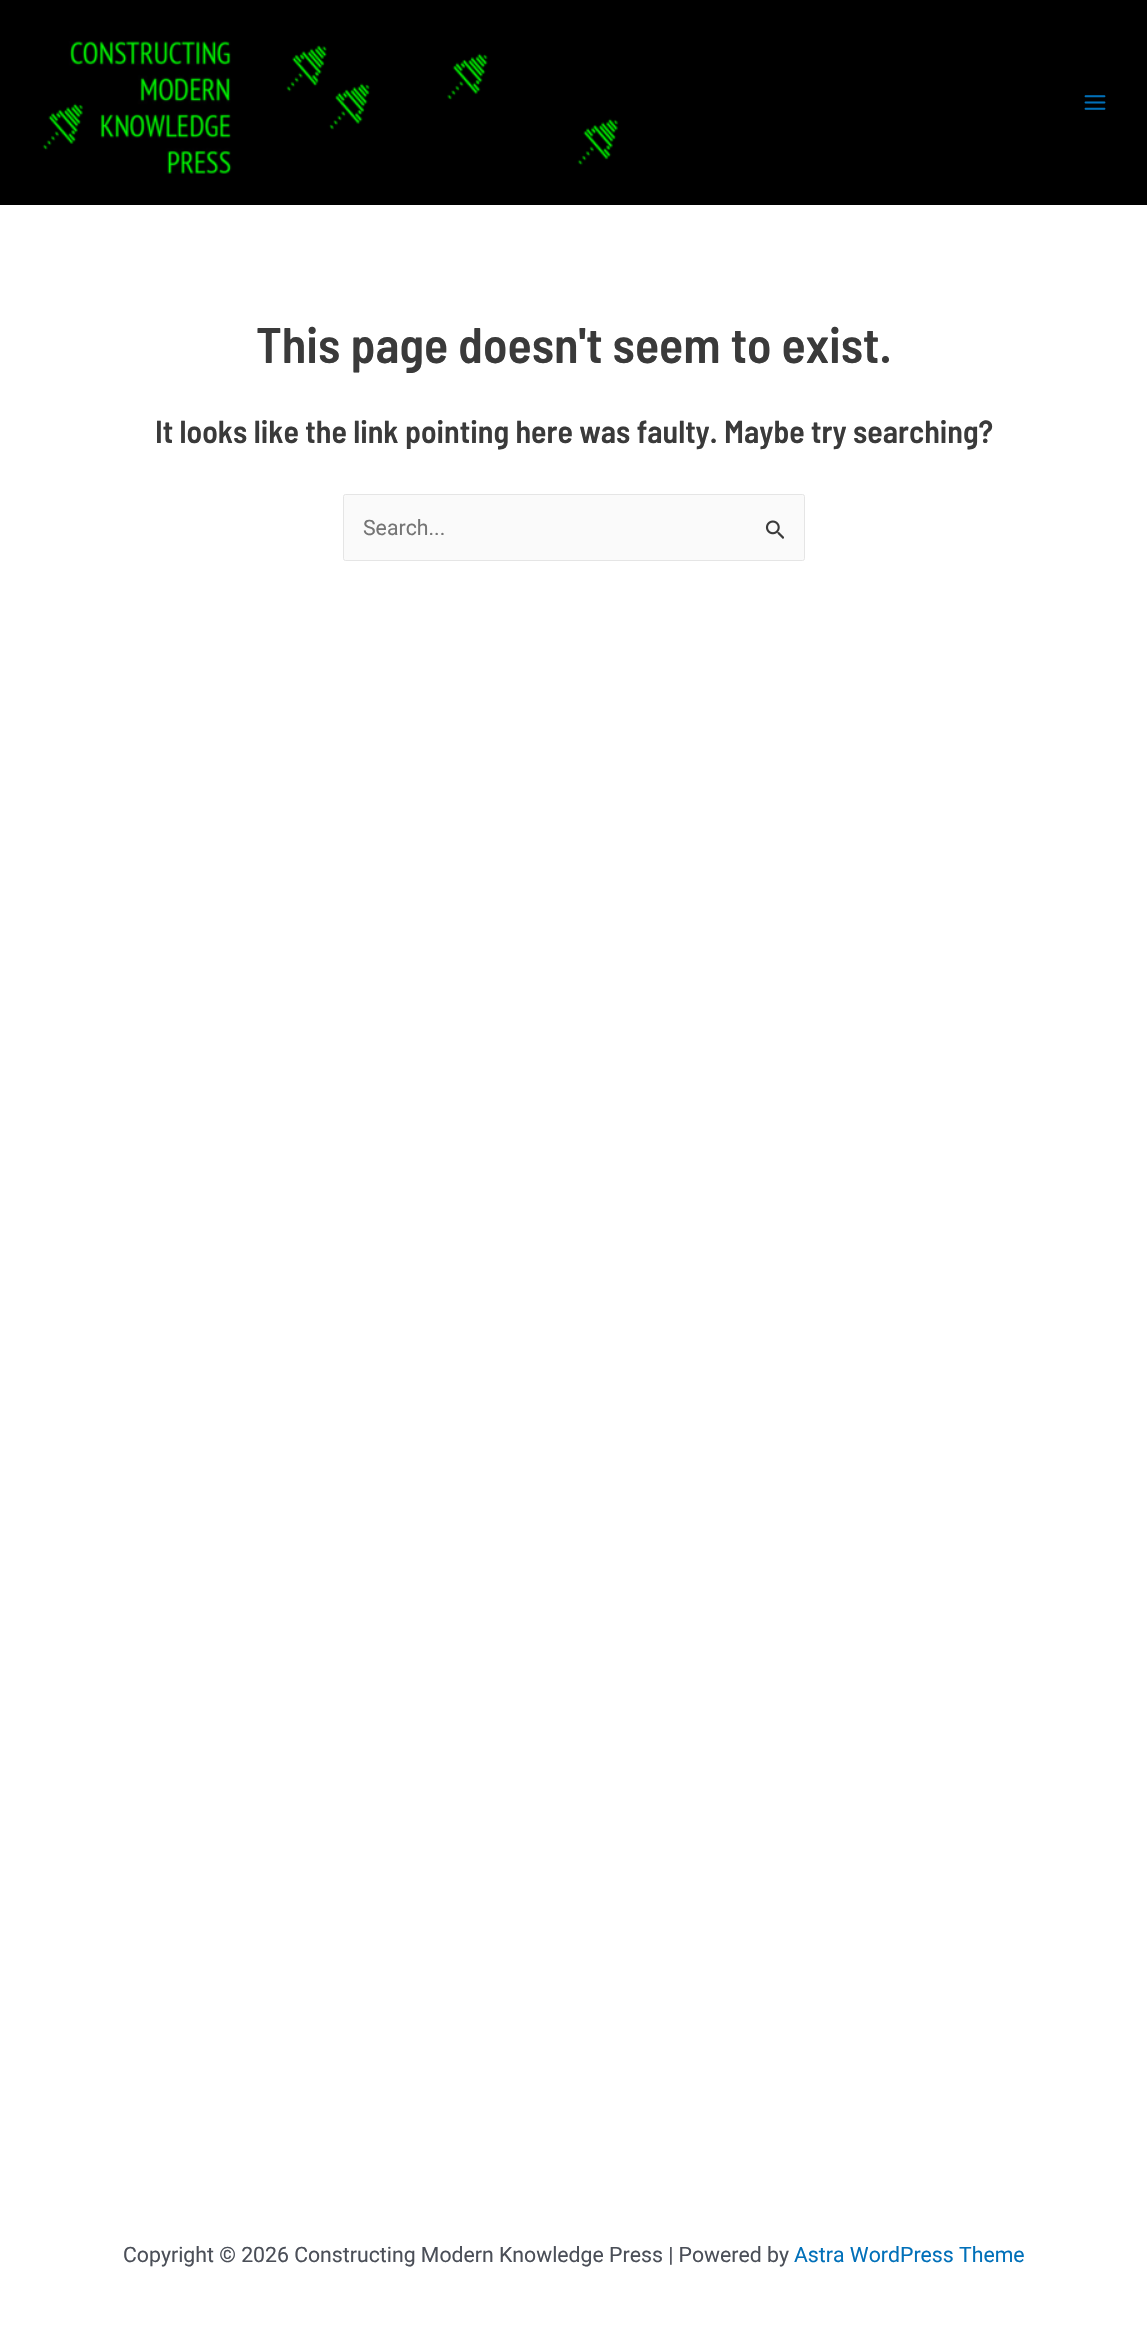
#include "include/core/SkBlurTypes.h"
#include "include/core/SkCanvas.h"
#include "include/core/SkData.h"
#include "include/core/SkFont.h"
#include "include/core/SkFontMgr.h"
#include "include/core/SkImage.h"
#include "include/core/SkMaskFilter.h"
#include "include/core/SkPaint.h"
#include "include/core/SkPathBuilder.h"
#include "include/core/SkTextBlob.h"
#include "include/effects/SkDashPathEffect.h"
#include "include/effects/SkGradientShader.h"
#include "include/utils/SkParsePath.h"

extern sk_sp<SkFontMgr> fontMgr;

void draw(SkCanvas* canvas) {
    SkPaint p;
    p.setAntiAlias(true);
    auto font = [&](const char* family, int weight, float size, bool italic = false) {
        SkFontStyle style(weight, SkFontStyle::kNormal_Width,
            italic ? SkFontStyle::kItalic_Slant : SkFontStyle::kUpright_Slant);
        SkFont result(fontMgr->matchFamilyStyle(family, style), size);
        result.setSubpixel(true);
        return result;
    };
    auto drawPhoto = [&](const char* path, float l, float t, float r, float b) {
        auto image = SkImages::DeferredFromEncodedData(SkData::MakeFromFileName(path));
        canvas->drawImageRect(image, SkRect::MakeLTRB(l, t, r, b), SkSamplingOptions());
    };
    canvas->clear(0xFFFFFFFF);
    p.setColor(0xFF000000);
    canvas->drawRect(SkRect::MakeLTRB(0, 0, 1147, 205), p);
    drawPhoto("media/1.png", 42, 41, 619, 174);
    drawPhoto("media/2.png", 1084, 95, 1106, 110);
    auto font1 = font("Barlow Semi Condensed", 600, 50);
    p.setColor(0xFF3A3A3A);
    canvas->drawString("This page doesn't seem to exist.", 256, 363, font1, p);
    auto font2 = font("Barlow Semi Condensed", 600, 31.9f);
    canvas->drawString("It looks like the link pointing here was faulty. Maybe try searching?", 155, 443, font2, p);
    p.setColor(0xFFFAFAFA);
    canvas->drawRoundRect(SkRect::MakeLTRB(343.5f, 494.5f, 804.5f, 560.5f), 2, 2, p);
    p.setStyle(SkPaint::kStroke_Style);
    p.setStrokeWidth(1);
    p.setColor(0xFFE5E5E5);
    canvas->drawRoundRect(SkRect::MakeLTRB(343.5f, 494.5f, 804.5f, 560.5f), 2, 2, p);
    auto font3 = font("Roboto", 400, 21.25f);
    p.setStyle(SkPaint::kFill_Style);
    p.setColor(0xFF757575);
    canvas->drawString("Search...", 363, 535, font3, p);
    drawPhoto("media/3.png", 765, 520, 784, 539);
    p.setColor(0xFF4B4F58);
    canvas->drawString("Copyright © 2026 Constructing Modern Knowledge Press | Powered by", 123, 2262, font3, p);
    p.setColor(0xFF0170B9);
    canvas->drawString("Astra WordPress Theme", 794, 2262, font3, p);
}
